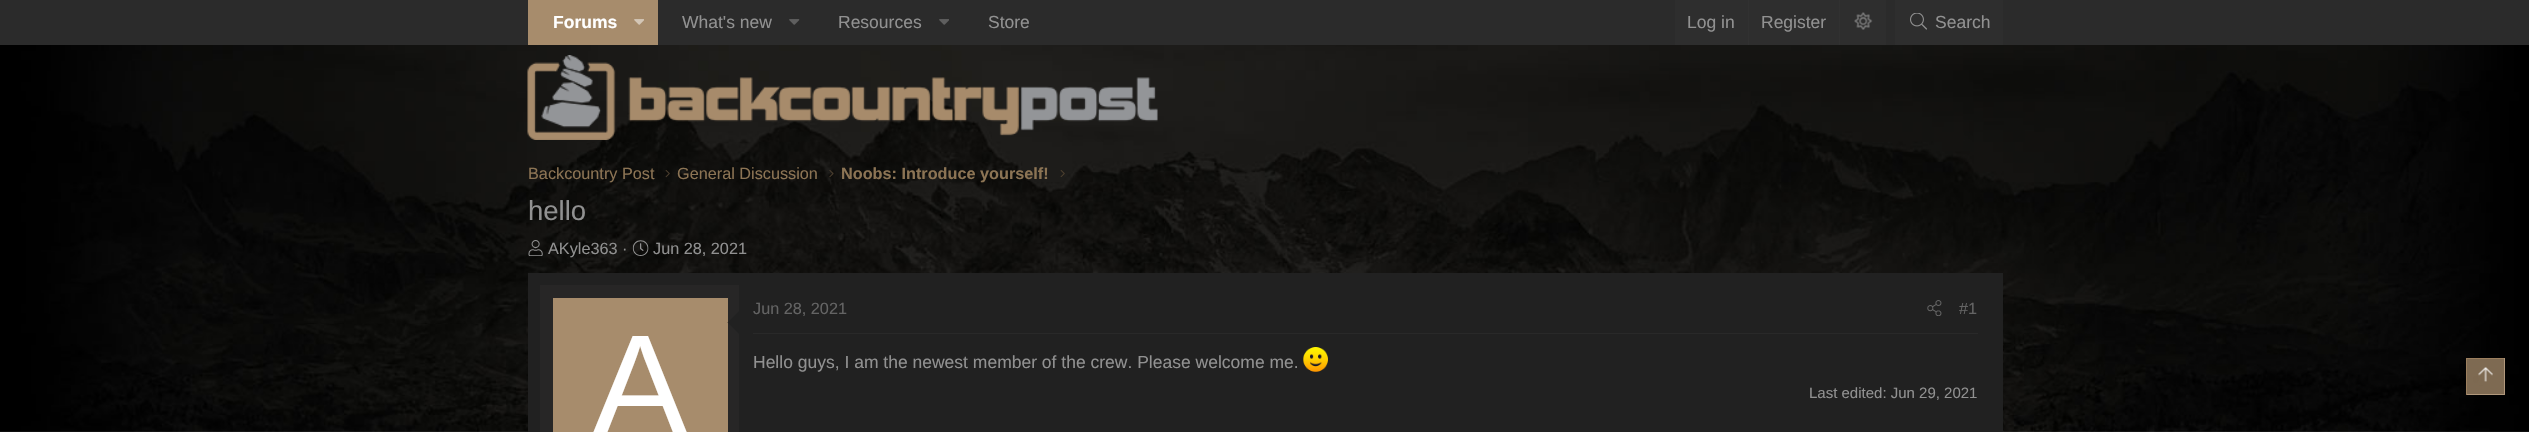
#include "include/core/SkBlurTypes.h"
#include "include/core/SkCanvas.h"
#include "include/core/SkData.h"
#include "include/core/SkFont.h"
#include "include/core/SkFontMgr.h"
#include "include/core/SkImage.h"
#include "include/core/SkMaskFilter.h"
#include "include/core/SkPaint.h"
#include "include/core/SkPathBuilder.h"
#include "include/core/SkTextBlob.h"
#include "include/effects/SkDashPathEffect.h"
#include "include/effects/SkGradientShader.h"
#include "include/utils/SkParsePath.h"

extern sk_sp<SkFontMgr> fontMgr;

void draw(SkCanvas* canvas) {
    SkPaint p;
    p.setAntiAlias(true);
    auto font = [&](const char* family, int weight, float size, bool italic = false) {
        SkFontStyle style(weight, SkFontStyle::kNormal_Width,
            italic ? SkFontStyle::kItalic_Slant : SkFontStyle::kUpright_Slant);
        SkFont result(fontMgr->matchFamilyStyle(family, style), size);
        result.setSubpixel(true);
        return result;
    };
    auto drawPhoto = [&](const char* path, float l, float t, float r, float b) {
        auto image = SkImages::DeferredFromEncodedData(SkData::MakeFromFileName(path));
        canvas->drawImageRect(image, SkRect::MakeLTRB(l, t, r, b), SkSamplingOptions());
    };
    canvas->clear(0xFFFFFFFF);
    drawPhoto("media/1.png", 0, 45, 2529, 432);
    p.setColor(0xFF2B2B2B);
    canvas->drawRect(SkRect::MakeLTRB(0, 0, 2529, 45), p);
    p.setColor(0xFFA78C6C);
    canvas->drawRect(SkRect::MakeLTRB(528, 0, 658, 45), p);
    auto font1 = font("Liberation Sans", 700, 17.5f);
    p.setColor(0xFFFFFFFF);
    canvas->drawString("Forums", 553, 28, font1, p);
    drawPhoto("media/2.png", 634, 19, 644, 25);
    auto font2 = font("Liberation Sans", 400, 17.5f);
    p.setColor(0xFF919191);
    canvas->drawString("What's new", 682, 28, font2, p);
    drawPhoto("media/3.png", 789, 19, 800, 25);
    canvas->drawString("Resources", 838, 28, font2, p);
    drawPhoto("media/4.png", 939, 19, 949, 25);
    canvas->drawString("Store", 988, 28, font2, p);
    p.setColor(0xFF2E2E2E);
    canvas->drawRect(SkRect::MakeLTRB(1675, 0, 1886, 45), p);
    p.setColor(0xFF919191);
    canvas->drawString("Log in", 1687, 28, font2, p);
    p.setColor(0xFF313131);
    canvas->drawRect(SkRect::MakeLTRB(1748, 0, 1749, 45), p);
    p.setColor(0xFF919191);
    canvas->drawString("Register", 1761, 28, font2, p);
    p.setColor(0xFF313131);
    canvas->drawRect(SkRect::MakeLTRB(1839, 0, 1840, 45), p);
    drawPhoto("media/5.png", 1854, 12, 1873, 30);
    p.setColor(0xFF2E2E2E);
    canvas->drawRect(SkRect::MakeLTRB(1895, 0, 2003, 45), p);
    drawPhoto("media/6.png", 1910, 13, 1927, 30);
    p.setColor(0xFF919191);
    canvas->drawString("Search", 1935, 28, font2, p);
    drawPhoto("media/7.png", 527, 55, 1158, 140);
    auto font3 = font("Liberation Sans", 400, 16.25f);
    p.setColor(0xFF8C7454);
    canvas->drawString("Backcountry Post", 528, 179, font3, p);
    drawPhoto("media/8.png", 665, 170, 670, 178);
    canvas->drawString("General Discussion", 677, 179, font3, p);
    drawPhoto("media/9.png", 829, 170, 834, 177);
    auto font4 = font("Liberation Sans", 700, 16.25f);
    canvas->drawString("Noobs: Introduce yourself!", 841, 179, font4, p);
    drawPhoto("media/10.png", 1060, 170, 1065, 177);
    auto font5 = font("Liberation Sans", 400, 27.5f);
    p.setColor(0xFF919191);
    canvas->drawString("hello", 528, 220, font5, p);
    drawPhoto("media/11.png", 528, 240, 543, 256);
    canvas->drawString("AKyle363 ·", 548, 254, font3, p);
    drawPhoto("media/12.png", 632, 240, 649, 256);
    canvas->drawString("Jun 28, 2021", 653, 254, font3, p);
    {
        const struct { float l, t, r, b; SkColor color; } items[] = {
            {528, 273, 2003, 432, 0xFF212121},
            {540, 285, 739, 432, 0xFF272626},
            {553, 298, 728, 432, 0xFFA78C6C},
        };
        for (auto [l, t, r, b, color] : items) {
            p.setColor(color);
            canvas->drawRect(SkRect::MakeLTRB(l, t, r, b), p);
        }
    }
    p.setColor(0xFF212121);
    canvas->drawPath(SkPathBuilder().moveTo(740, 310).lineTo(740, 335).lineTo(727.5f, 322.5f).close().detach(), p);
    auto font6 = font("Liberation Sans", 400, 144);
    p.setColor(0xFFFFFFFF);
    canvas->drawString("A", 592, 435, font6, p);
    p.setColor(0xFF292929);
    canvas->drawRect(SkRect::MakeLTRB(753, 333, 1978, 334), p);
    p.setColor(0xFF646464);
    canvas->drawString("Jun 28, 2021", 753, 314, font3, p);
    drawPhoto("media/13.png", 1927, 300, 1942, 316);
    canvas->drawString("#1", 1959, 314, font3, p);
    p.setColor(0xFF919191);
    canvas->drawString("Hello guys, I am the newest member of the crew. Please welcome me.", 753, 368, font2, p);
    drawPhoto("media/14.png", 1303, 347, 1328, 372);
    auto font7 = font("Liberation Sans", 400, 15);
    canvas->drawString("Last edited: Jun 29, 2021", 1809, 398, font7, p);
    {
        const struct { float l, t, r, b; SkColor color; } items[] = {
            {2467, 359, 2504, 394, 0xBFA78C6C},
            {2466, 358, 2505, 359, 0xFF9C7F5E},
            {2504, 358, 2505, 395, 0xFFB1987C},
            {2466, 394, 2505, 395, 0xFFB1987C},
            {2466, 358, 2467, 395, 0xFF9C7F5E},
        };
        for (auto [l, t, r, b, color] : items) {
            p.setColor(color);
            canvas->drawRect(SkRect::MakeLTRB(l, t, r, b), p);
        }
    }
    drawPhoto("media/15.png", 2478, 367, 2493, 382);
}
